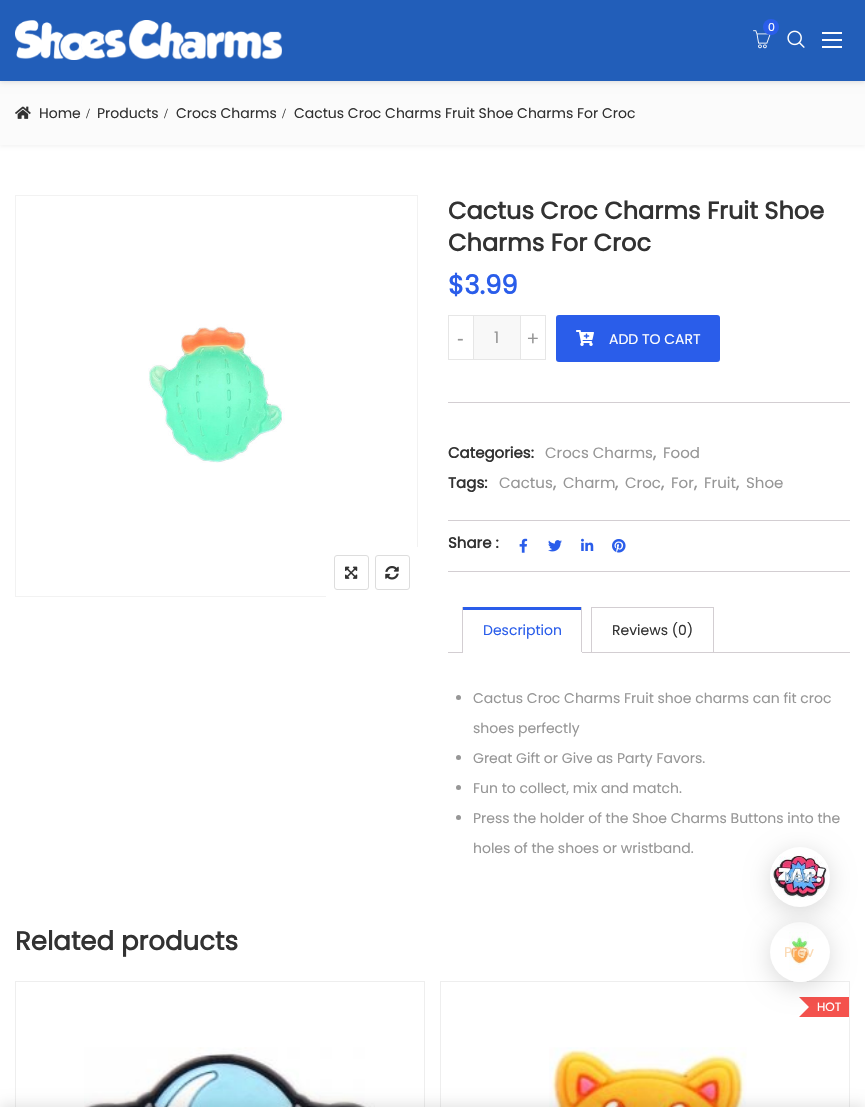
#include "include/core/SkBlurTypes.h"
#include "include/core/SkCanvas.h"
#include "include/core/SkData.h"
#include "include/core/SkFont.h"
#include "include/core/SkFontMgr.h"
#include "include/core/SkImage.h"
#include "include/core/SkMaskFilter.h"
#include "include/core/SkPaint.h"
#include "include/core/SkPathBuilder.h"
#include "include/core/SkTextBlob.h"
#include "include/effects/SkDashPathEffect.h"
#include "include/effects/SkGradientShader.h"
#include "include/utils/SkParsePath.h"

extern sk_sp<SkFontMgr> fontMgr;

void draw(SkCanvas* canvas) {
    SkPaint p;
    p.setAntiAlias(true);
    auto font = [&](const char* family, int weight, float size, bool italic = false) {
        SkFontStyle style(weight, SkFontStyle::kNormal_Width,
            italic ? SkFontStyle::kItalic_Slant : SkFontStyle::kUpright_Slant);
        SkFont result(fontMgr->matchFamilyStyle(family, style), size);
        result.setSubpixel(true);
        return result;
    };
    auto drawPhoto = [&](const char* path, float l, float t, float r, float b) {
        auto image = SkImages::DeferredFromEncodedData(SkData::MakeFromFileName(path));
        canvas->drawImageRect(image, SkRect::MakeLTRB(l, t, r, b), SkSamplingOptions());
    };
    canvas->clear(0xFFFFFFFF);
    p.setColor(0x0A000000);
    p.setMaskFilter(SkMaskFilter::MakeBlur(kNormal_SkBlurStyle, 1.5f));
    canvas->drawRect(SkRect::MakeLTRB(0, 83, 865, 147), p);
    p.setMaskFilter(nullptr);
    p.setColor(0xFFFBFBFB);
    canvas->drawRect(SkRect::MakeLTRB(0, 81, 865, 145), p);
    p.setColor(0x0D000000);
    p.setMaskFilter(SkMaskFilter::MakeBlur(kNormal_SkBlurStyle, 1.5f));
    canvas->drawRect(SkRect::MakeLTRB(0, 2, 865, 83), p);
    p.setMaskFilter(nullptr);
    p.setMaskFilter(SkMaskFilter::MakeBlur(kNormal_SkBlurStyle, 4));
    canvas->drawRect(SkRect::MakeLTRB(0, 2, 865, 82), p);
    p.setMaskFilter(nullptr);
    p.setColor(0xFF225EB9);
    canvas->drawRect(SkRect::MakeLTRB(0, 0, 865, 81), p);
    drawPhoto("media/1.png", 15, 20, 282, 60);
    drawPhoto("media/2.png", 753, 30, 771, 49);
    p.setColor(0xFF2A5DEA);
    canvas->drawCircle(771, 27, 8, p);
    auto font1 = font("Poppins", 400, 11);
    p.setColor(0xFFFFFFFF);
    canvas->drawString("0", 768, 31, font1, p);
    drawPhoto("media/3.png", 787, 30, 805, 48);
    {
        const struct { float l, t, r, b; SkColor color; } items[] = {
            {822, 39, 842, 41, 0xFFFFFFFF},
            {822, 32, 842, 34, 0xFFFFFFFF},
            {822, 46, 842, 48, 0xFFFFFFFF},
        };
        for (auto [l, t, r, b, color] : items) {
            p.setColor(color);
            canvas->drawRect(SkRect::MakeLTRB(l, t, r, b), p);
        }
    }
    drawPhoto("media/4.png", 15, 106, 31, 119);
    auto font2 = font("Poppins", 400, 14);
    p.setColor(0xFF323232);
    canvas->drawString("Home", 39, 118, font2, p);
    auto font3 = font("Liberation Serif", 400, 14);
    canvas->drawString("/", 86, 118, font3, p);
    canvas->drawString("Products", 97, 118, font2, p);
    canvas->drawString("/", 164, 118, font3, p);
    canvas->drawString("Crocs Charms", 176, 118, font2, p);
    canvas->drawString("/", 282, 118, font3, p);
    canvas->drawString("Cactus Croc Charms Fruit Shoe Charms For Croc", 294, 118, font2, p);
    p.setStyle(SkPaint::kStroke_Style);
    p.setStrokeWidth(1);
    p.setColor(0xFFF2F2F2);
    canvas->drawRect(SkRect::MakeLTRB(15.5f, 195.5f, 417.5f, 596.5f), p);
    drawPhoto("media/5.png", 148, 324, 285, 463);
    p.setStyle(SkPaint::kFill_Style);
    p.setColor(0xFFFFFFFF);
    canvas->drawPath(SkPathBuilder().moveTo(331, 547).lineTo(418, 547).lineTo(418, 598).lineTo(326, 598).lineTo(326, 552).cubicTo(326, 549, 328, 547, 331, 547).close().detach(), p);
    p.setStyle(SkPaint::kStroke_Style);
    p.setColor(0xFFDDDDDD);
    canvas->drawRoundRect(SkRect::MakeLTRB(334.5f, 555.5f, 368.5f, 589.5f), 2.5f, 2.5f, p);
    drawPhoto("media/6.png", 345, 566, 358, 579);
    canvas->drawRoundRect(SkRect::MakeLTRB(375.5f, 555.5f, 409.5f, 589.5f), 2.5f, 2.5f, p);
    drawPhoto("media/7.png", 385, 566, 399, 580);
    auto font4 = font("Poppins", 700, 24);
    p.setStyle(SkPaint::kFill_Style);
    p.setColor(0xFF323232);
    canvas->drawString("Cactus Croc Charms Fruit Shoe", 448, 219, font4, p);
    canvas->drawString("Charms For Croc", 448, 251, font4, p);
    auto font5 = font("Poppins", 700, 26);
    p.setColor(0xFF2A5DEA);
    canvas->drawString("$3.99", 448, 294, font5, p);
    p.setColor(0xFFF8F8F8);
    canvas->drawRect(SkRect::MakeLTRB(474, 316, 520, 359), p);
    p.setStyle(SkPaint::kStroke_Style);
    p.setColor(0xFFE6E6E6);
    canvas->drawRect(SkRect::MakeLTRB(472.5f, 315.5f, 521.5f, 359.5f), p);
    auto font6 = font("Poppins", 400, 16);
    p.setStyle(SkPaint::kFill_Style);
    p.setColor(0xFF969696);
    canvas->drawString("1", 494, 343, font6, p);
    p.setColor(0xFFFFFFFF);
    canvas->drawRect(SkRect::MakeLTRB(472, 316, 473, 359), p);
    p.setStyle(SkPaint::kStroke_Style);
    p.setColor(0xFFE6E6E6);
    canvas->drawRect(SkRect::MakeLTRB(448.5f, 315.5f, 473.5f, 359.5f), p);
    auto font7 = font("Liberation Sans", 400, 20);
    p.setStyle(SkPaint::kFill_Style);
    p.setColor(0xFF969696);
    canvas->drawString("-", 457, 345, font7, p);
    p.setColor(0xFFFFFFFF);
    canvas->drawRect(SkRect::MakeLTRB(521, 316, 522, 359), p);
    p.setStyle(SkPaint::kStroke_Style);
    p.setColor(0xFFE6E6E6);
    canvas->drawRect(SkRect::MakeLTRB(520.5f, 315.5f, 545.5f, 359.5f), p);
    p.setStyle(SkPaint::kFill_Style);
    p.setColor(0xFF969696);
    canvas->drawString("+", 527, 345, font7, p);
    p.setColor(0xFF2A5DEA);
    canvas->drawRoundRect(SkRect::MakeLTRB(556, 315, 720, 362), 3, 3, p);
    drawPhoto("media/8.png", 576, 330, 594, 346);
    p.setColor(0xFFFFFFFF);
    canvas->drawString("ADD TO CART", 609, 344, font2, p);
    p.setColor(0xFFD3CED2);
    canvas->drawRect(SkRect::MakeLTRB(448, 402, 850, 403), p);
    auto font8 = font("Poppins", 700, 15);
    p.setColor(0xFF323232);
    canvas->drawString("Categories:", 448, 458, font8, p);
    auto font9 = font("Poppins", 400, 15);
    p.setColor(0xFF969696);
    canvas->drawString("Crocs Charms", 545, 458, font9, p);
    canvas->drawString(",", 653, 458, font8, p);
    canvas->drawString("Food", 663, 458, font9, p);
    p.setColor(0xFF323232);
    canvas->drawString("Tags:", 448, 488, font8, p);
    p.setColor(0xFF969696);
    canvas->drawString("Cactus", 499, 488, font9, p);
    canvas->drawString(",", 553, 488, font8, p);
    canvas->drawString("Charm", 563, 488, font9, p);
    canvas->drawString(",", 615, 488, font8, p);
    canvas->drawString("Croc", 625, 488, font9, p);
    canvas->drawString(",", 661, 488, font8, p);
    canvas->drawString("For", 671, 488, font9, p);
    canvas->drawString(",", 694, 488, font8, p);
    canvas->drawString("Fruit", 704, 488, font9, p);
    canvas->drawString(",", 736, 488, font8, p);
    canvas->drawString("Shoe", 746, 488, font9, p);
    p.setColor(0xFFD3CED2);
    canvas->drawRect(SkRect::MakeLTRB(448, 520, 850, 521), p);
    canvas->drawRect(SkRect::MakeLTRB(448, 571, 850, 572), p);
    p.setColor(0xFF323232);
    canvas->drawString("Share :", 448, 548, font8, p);
    drawPhoto("media/9.png", 519, 538, 528, 553);
    drawPhoto("media/10.png", 548, 540, 562, 552);
    drawPhoto("media/11.png", 581, 538, 594, 551);
    drawPhoto("media/12.png", 612, 539, 626, 553);
    p.setStyle(SkPaint::kStroke_Style);
    p.setColor(0xFFEEEEEE);
    canvas->drawRect(SkRect::MakeLTRB(15.5f, 981.5f, 424.5f, 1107.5f), p);
    drawPhoto("media/13.png", 84, 1047, 375, 1107);
    canvas->drawRect(SkRect::MakeLTRB(440.5f, 981.5f, 849.5f, 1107.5f), p);
    drawPhoto("media/14.png", 549, 1047, 747, 1107);
    p.setStyle(SkPaint::kFill_Style);
    p.setColor(0x1A000000);
    p.setMaskFilter(SkMaskFilter::MakeBlur(kNormal_SkBlurStyle, 6.5f));
    canvas->drawRect(SkRect::MakeLTRB(0, 1104, 865, 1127), p);
    p.setMaskFilter(nullptr);
    p.setStyle(SkPaint::kStroke_Style);
    p.setColor(0xFFD3CED2);
    canvas->drawRect(SkRect::MakeLTRB(591.5f, 607.5f, 713.5f, 652.5f), p);
    p.setStyle(SkPaint::kFill_Style);
    {
        const struct { float l, t, r, b; SkColor color; } items[] = {
            {448, 652, 850, 653, 0xFFD3CED2},
            {581, 607, 582, 653, 0xFFD3CED2},
            {462, 652, 582, 653, 0xFFFFFFFF},
            {462, 607, 463, 653, 0xFFD3CED2},
            {463, 607, 581, 610, 0xFF2A5DEA},
        };
        for (auto [l, t, r, b, color] : items) {
            p.setColor(color);
            canvas->drawRect(SkRect::MakeLTRB(l, t, r, b), p);
        }
    }
    canvas->drawString("Description", 483, 635, font2, p);
    p.setColor(0xFF323232);
    canvas->drawString("Reviews (0)", 612, 635, font2, p);
    p.setColor(0xFF969696);
    canvas->drawCircle(458.5f, 697.5f, 2.5f, p);
    canvas->drawString("Cactus Croc Charms Fruit shoe charms can fit croc", 473, 703, font2, p);
    canvas->drawString("shoes perfectly", 473, 733, font2, p);
    canvas->drawCircle(458.5f, 757.5f, 2.5f, p);
    canvas->drawString("Great Gift or Give as Party Favors.", 473, 763, font2, p);
    canvas->drawCircle(458.5f, 787.5f, 2.5f, p);
    canvas->drawString("Fun to collect, mix and match.", 473, 793, font2, p);
    canvas->drawCircle(458.5f, 817.5f, 2.5f, p);
    canvas->drawString("Press the holder of the Shoe Charms Buttons into the", 473, 823, font2, p);
    canvas->drawString("holes of the shoes or wristband.", 473, 853, font2, p);
    p.setColor(0xFF323232);
    canvas->drawString("Related products", 15, 950, font5, p);
    p.setColor(0xFFF4524D);
    canvas->drawRect(SkRect::MakeLTRB(809, 997, 849, 1017), p);
    auto font10 = font("Poppins", 400, 12);
    p.setColor(0xFFFFFFFF);
    canvas->drawString("HOT", 817, 1011, font10, p);
    p.setColor(0xFFF4524D);
    canvas->drawPath(SkPathBuilder().moveTo(799, 997).lineTo(819, 997).lineTo(809, 1007).close().moveTo(819, 1017).lineTo(799, 1017).lineTo(809, 1007).close().detach(), p);
    p.setColor(0x26000000);
    p.setMaskFilter(SkMaskFilter::MakeBlur(kNormal_SkBlurStyle, 12.5f));
    canvas->drawRoundRect(SkRect::MakeLTRB(770, 927, 830, 987), 30, 30, p);
    p.setMaskFilter(nullptr);
    p.setColor(0xFFFFFFFF);
    canvas->drawCircle(800, 952, 30, p);
    drawPhoto("media/16.png", 789, 932, 809, 982);
    p.setColor(0x26000000);
    p.setMaskFilter(SkMaskFilter::MakeBlur(kNormal_SkBlurStyle, 12.5f));
    canvas->drawRoundRect(SkRect::MakeLTRB(770, 852, 830, 912), 30, 30, p);
    p.setMaskFilter(nullptr);
    p.setColor(0xFFFFFFFF);
    canvas->drawCircle(800, 877, 30, p);
    drawPhoto("media/15.png", 770, 854, 828, 900);
    p.setColor(0xFFA9C0D4);
    canvas->drawString("Next", 784, 882, font2, p);
    p.setColor(0xFFFBDAB4);
    canvas->drawString("Prev", 784, 957, font2, p);
}
